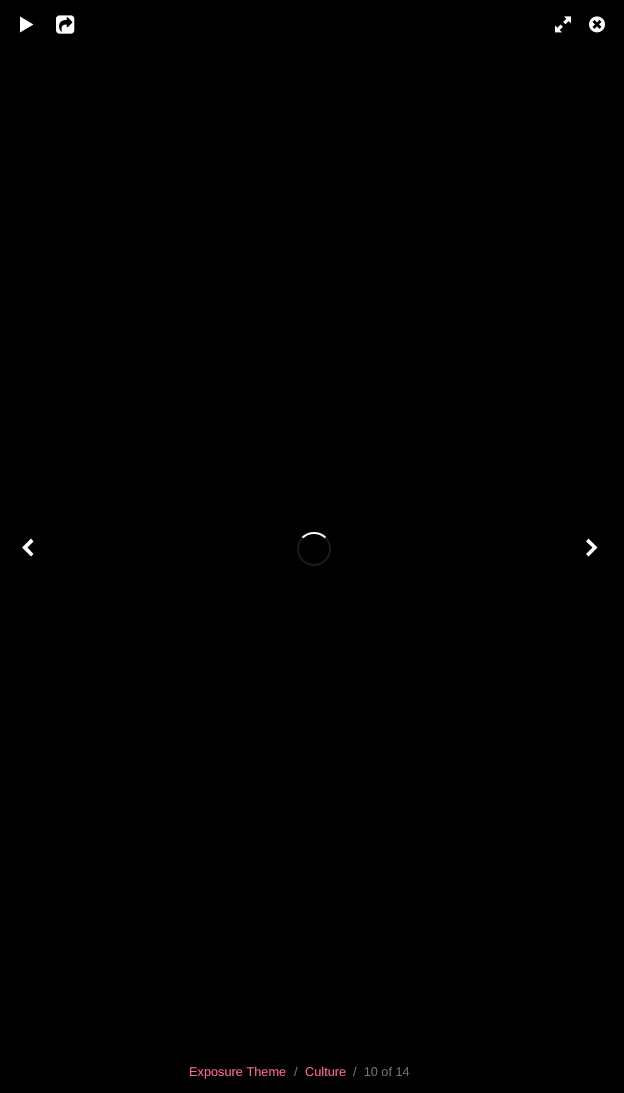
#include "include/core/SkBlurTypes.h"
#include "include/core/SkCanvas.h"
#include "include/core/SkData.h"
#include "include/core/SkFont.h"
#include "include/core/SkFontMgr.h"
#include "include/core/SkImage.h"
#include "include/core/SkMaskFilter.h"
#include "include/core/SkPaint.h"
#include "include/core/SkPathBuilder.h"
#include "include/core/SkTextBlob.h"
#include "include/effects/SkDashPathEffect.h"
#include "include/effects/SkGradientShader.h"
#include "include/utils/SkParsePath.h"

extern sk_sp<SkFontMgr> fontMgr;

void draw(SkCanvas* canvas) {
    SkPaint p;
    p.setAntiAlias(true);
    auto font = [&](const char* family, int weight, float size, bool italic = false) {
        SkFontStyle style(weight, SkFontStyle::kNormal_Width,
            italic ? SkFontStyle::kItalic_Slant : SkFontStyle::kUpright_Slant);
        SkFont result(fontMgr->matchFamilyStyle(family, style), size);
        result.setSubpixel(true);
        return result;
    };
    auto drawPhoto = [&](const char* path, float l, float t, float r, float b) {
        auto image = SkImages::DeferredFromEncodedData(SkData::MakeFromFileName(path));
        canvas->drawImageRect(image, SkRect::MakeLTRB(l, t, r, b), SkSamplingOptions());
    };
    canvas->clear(0xFF000000);
    p.setColor(0xFFFFFFFF);
    canvas->drawPath(SkPathBuilder().moveTo(20, 32.5f).lineTo(20, 16.5f).lineTo(33.5f, 24.5f).close().detach(), p);
    drawPhoto("media/1.png", 56, 15, 75, 34);
    drawPhoto("media/2.png", 555, 16, 571, 33);
    drawPhoto("media/3.png", 589, 16, 605, 33);
    canvas->drawPath(SkPathBuilder().moveTo(22, 547.5f).lineTo(31, 538.5f).lineTo(33.5f, 541.5f).lineTo(27.5f, 547.5f).lineTo(33.5f, 554).lineTo(31, 556.5f).close().detach(), p);
    p.setStyle(SkPaint::kStroke_Style);
    p.setStrokeWidth(2);
    p.setColor(0xFF1A1A1A);
    canvas->drawCircle(314, 549, 16, p);
    p.setColor(0xFFFFFFFF);
    canvas->drawPath(SkPathBuilder().moveTo(302.5f, 537.5f).cubicTo(309, 531.5f, 319, 531.5f, 325.5f, 537.5f).detach(), p);
    p.setStyle(SkPaint::kFill_Style);
    canvas->drawPath(SkPathBuilder().moveTo(586, 554).lineTo(592.5f, 547.5f).lineTo(586, 541.5f).lineTo(588.5f, 538.5f).lineTo(597.5f, 547.5f).lineTo(588.5f, 556.5f).close().detach(), p);
    auto font1 = font("Liberation Sans", 400, 12.75f);
    p.setColor(0xFFFF6699);
    canvas->drawString("Exposure Theme", 189, 1076, font1, p);
    p.setColor(0xFF707070);
    canvas->drawString("/", 294, 1076, font1, p);
    p.setColor(0xFFFF6699);
    canvas->drawString("Culture", 305, 1076, font1, p);
    p.setColor(0xFF707070);
    canvas->drawString("/  10 of 14", 353, 1076, font1, p);
}
